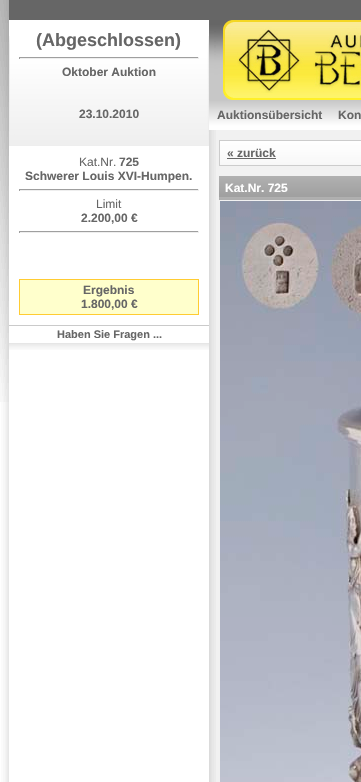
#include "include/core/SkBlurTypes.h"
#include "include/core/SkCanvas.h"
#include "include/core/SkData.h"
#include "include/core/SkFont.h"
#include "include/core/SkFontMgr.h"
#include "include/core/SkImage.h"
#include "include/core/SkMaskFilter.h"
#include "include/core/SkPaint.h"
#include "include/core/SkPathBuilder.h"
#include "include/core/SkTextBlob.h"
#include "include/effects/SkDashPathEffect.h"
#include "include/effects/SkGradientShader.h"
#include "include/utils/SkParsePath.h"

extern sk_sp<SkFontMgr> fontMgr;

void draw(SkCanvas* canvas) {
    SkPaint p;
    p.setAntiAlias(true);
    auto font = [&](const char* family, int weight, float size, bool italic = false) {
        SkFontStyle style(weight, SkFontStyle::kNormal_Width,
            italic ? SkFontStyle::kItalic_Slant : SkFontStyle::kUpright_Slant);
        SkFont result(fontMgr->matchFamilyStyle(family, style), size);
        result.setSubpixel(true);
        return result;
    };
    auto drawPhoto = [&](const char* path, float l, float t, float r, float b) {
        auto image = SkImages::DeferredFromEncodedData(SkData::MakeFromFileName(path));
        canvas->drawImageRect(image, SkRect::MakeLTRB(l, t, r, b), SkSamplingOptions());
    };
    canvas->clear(0xFFFFFFFF);
    drawPhoto("media/1.png", 0, 20, 209, 782);
    drawPhoto("media/2.png", 0, 0, 9, 402);
    p.setColor(0xFF666666);
    canvas->drawRect(SkRect::MakeLTRB(9, 0, 361, 20), p);
    drawPhoto("media/3.png", 9, 36, 209, 146);
    auto font1 = font("Liberation Sans", 700, 18);
    canvas->drawString("(Abgeschlossen)", 36, 46, font1, p);
    {
        const struct { float l, t, r, b; SkColor color; } items[] = {
            {19, 57, 199, 58, 0xFF9F9F9F},
            {198, 57, 199, 59, 0xFFEEEEEE},
            {19, 58, 199, 59, 0xFFEEEEEE},
            {19, 57, 20, 59, 0xFF9F9F9F},
        };
        for (auto [l, t, r, b, color] : items) {
            p.setColor(color);
            canvas->drawRect(SkRect::MakeLTRB(l, t, r, b), p);
        }
    }
    auto font2 = font("Liberation Sans", 700, 12);
    p.setColor(0xFF666666);
    canvas->drawString("Oktober Auktion", 62, 76, font2, p);
    canvas->drawString("23.10.2010", 79, 118, font2, p);
    drawPhoto("media/4.png", 9, 343, 209, 350);
    auto font3 = font("Liberation Sans", 400, 12);
    canvas->drawString("Kat.Nr.", 79, 166, font3, p);
    canvas->drawString("725", 119, 166, font2, p);
    canvas->drawString("Schwerer Louis XVI-Humpen.", 25, 180, font2, p);
    {
        const struct { float l, t, r, b; SkColor color; } items[] = {
            {19, 189, 199, 190, 0xFF9F9F9F},
            {198, 189, 199, 191, 0xFFEEEEEE},
            {19, 190, 199, 191, 0xFFEEEEEE},
            {19, 189, 20, 191, 0xFF9F9F9F},
        };
        for (auto [l, t, r, b, color] : items) {
            p.setColor(color);
            canvas->drawRect(SkRect::MakeLTRB(l, t, r, b), p);
        }
    }
    p.setColor(0xFF666666);
    canvas->drawString("Limit", 96, 208, font3, p);
    canvas->drawString("2.200,00 €", 81, 222, font2, p);
    {
        const struct { float l, t, r, b; SkColor color; } items[] = {
            {19, 231, 199, 232, 0xFF9F9F9F},
            {198, 231, 199, 233, 0xFFEEEEEE},
            {19, 232, 199, 233, 0xFFEEEEEE},
            {19, 231, 20, 233, 0xFF9F9F9F},
        };
        for (auto [l, t, r, b, color] : items) {
            p.setColor(color);
            canvas->drawRect(SkRect::MakeLTRB(l, t, r, b), p);
        }
    }
    p.setColor(0xFFFFFFCC);
    canvas->drawRect(SkRect::MakeLTRB(19.5f, 279.5f, 198.5f, 314.5f), p);
    p.setStyle(SkPaint::kStroke_Style);
    p.setStrokeWidth(1);
    p.setColor(0xFFFFCC33);
    canvas->drawRect(SkRect::MakeLTRB(19.5f, 279.5f, 198.5f, 314.5f), p);
    p.setStyle(SkPaint::kFill_Style);
    p.setColor(0xFF666666);
    canvas->drawString("Ergebnis", 83, 294, font2, p);
    canvas->drawString("1.800,00 €", 81, 308, font2, p);
    p.setColor(0xFFCACACA);
    canvas->drawRect(SkRect::MakeLTRB(9, 325, 209, 326), p);
    auto font4 = font("Liberation Sans", 700, 11);
    p.setColor(0xFF666666);
    canvas->drawString("Haben Sie Fragen ...", 57, 338, font4, p);
    p.setColor(0xFFF1F1F1);
    canvas->drawRect(SkRect::MakeLTRB(216, 130, 361, 782), p);
    drawPhoto("media/5.png", 209, 130, 216, 782);
    drawPhoto("media/6.png", 223, 20, 361, 100);
    drawPhoto("media/7.png", 209, 20, 223, 100);
    drawPhoto("media/8.png", 209, 100, 330, 130);
    p.setColor(0xFF666666);
    canvas->drawString("Auktionsübersicht", 217, 119, font2, p);
    drawPhoto("media/9.png", 330, 100, 361, 130);
    canvas->drawString("Kon", 338, 119, font2, p);
    drawPhoto("media/10.png", 220, 141, 361, 165);
    p.setStyle(SkPaint::kStroke_Style);
    p.setColor(0xFFCCCCCC);
    canvas->drawRect(SkRect::MakeLTRB(219.5f, 140.5f, 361.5f, 165.5f), p);
    p.setStyle(SkPaint::kFill_Style);
    p.setColor(0xFF666666);
    canvas->drawString("« zurück", 227, 157, font2, p);
    canvas->drawRect(SkRect::MakeLTRB(227, 158, 276, 159), p);
    drawPhoto("media/11.png", 219, 176, 361, 200);
    p.setColor(0xFFFFFFFF);
    canvas->drawString("Kat.Nr. 725", 225, 192, font2, p);
    drawPhoto("media/12.png", 220, 201, 361, 782);
}
